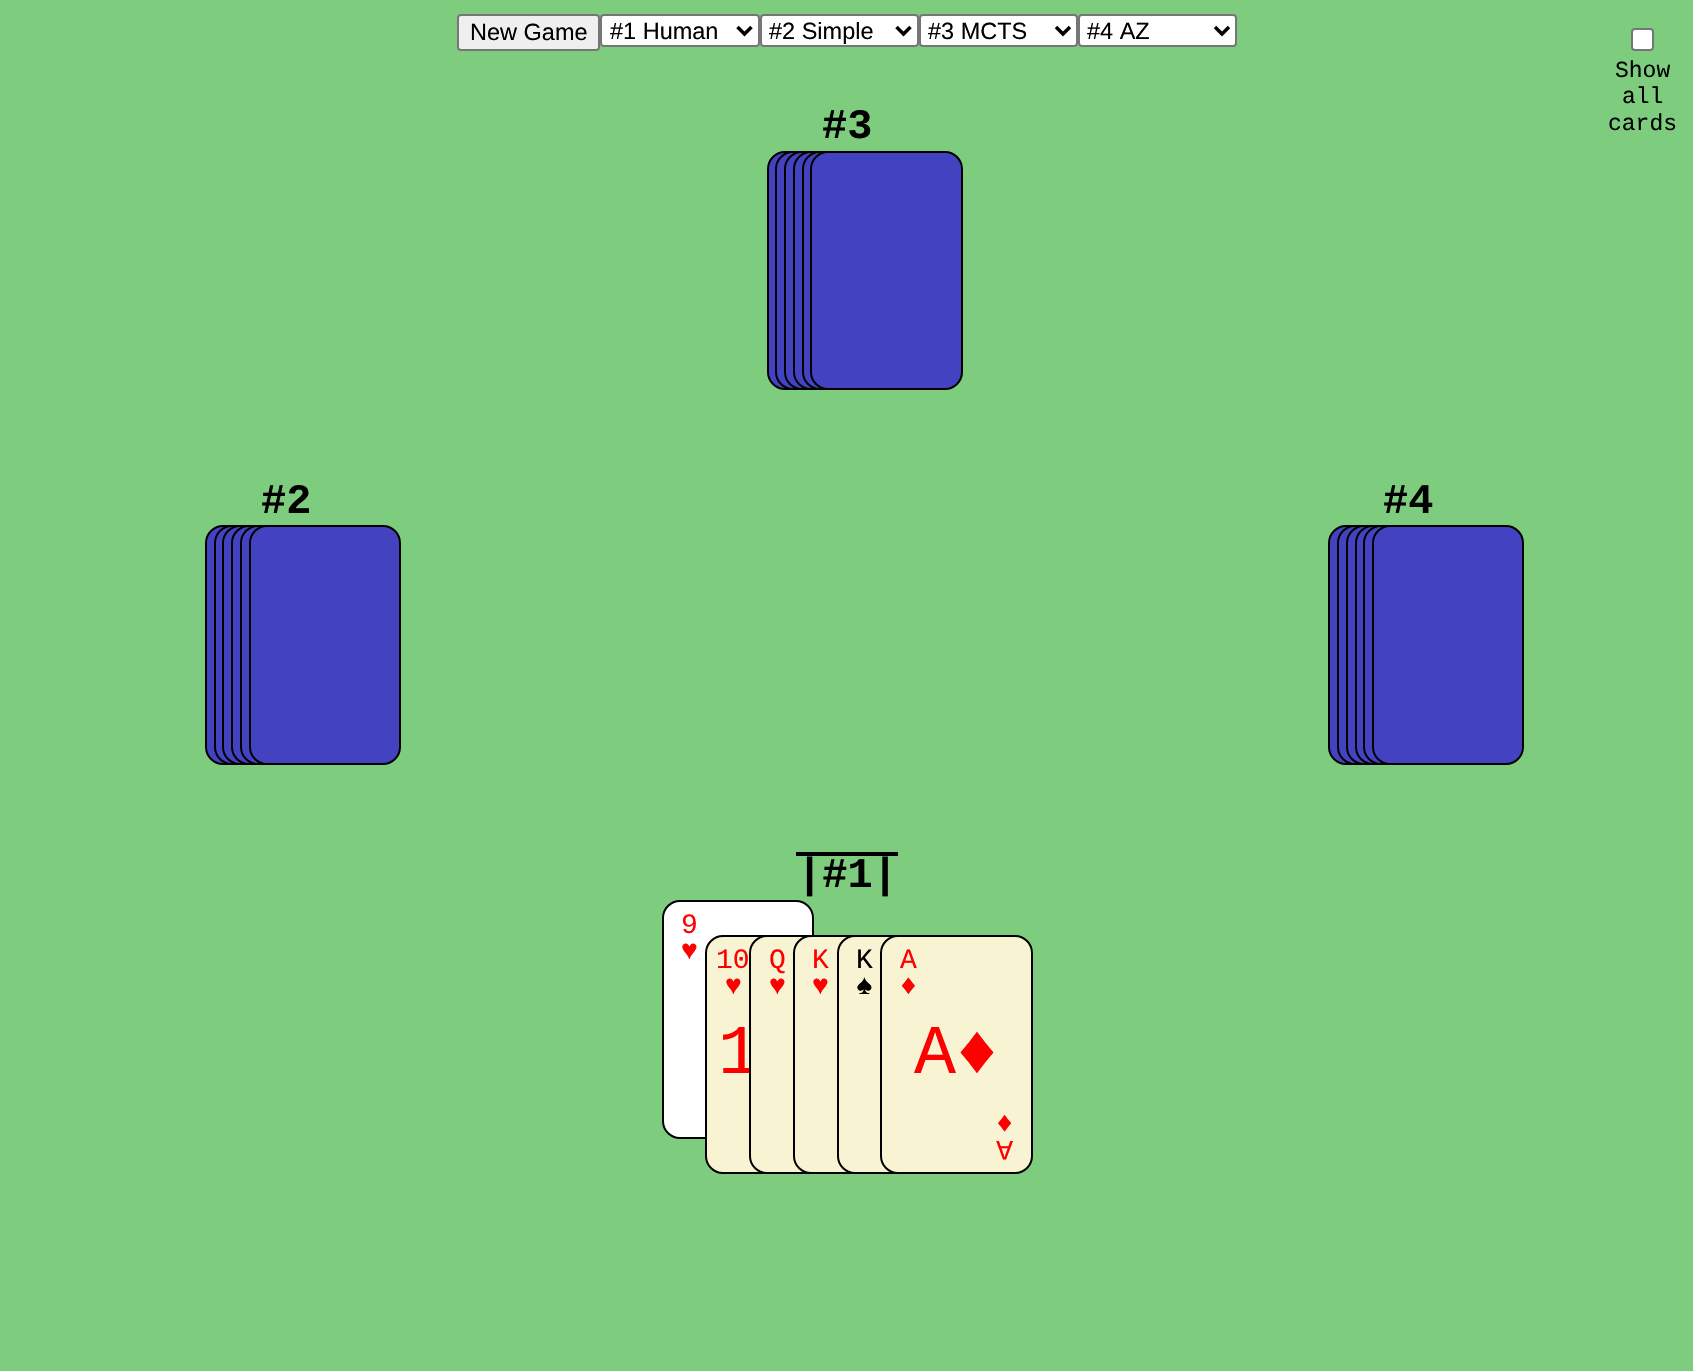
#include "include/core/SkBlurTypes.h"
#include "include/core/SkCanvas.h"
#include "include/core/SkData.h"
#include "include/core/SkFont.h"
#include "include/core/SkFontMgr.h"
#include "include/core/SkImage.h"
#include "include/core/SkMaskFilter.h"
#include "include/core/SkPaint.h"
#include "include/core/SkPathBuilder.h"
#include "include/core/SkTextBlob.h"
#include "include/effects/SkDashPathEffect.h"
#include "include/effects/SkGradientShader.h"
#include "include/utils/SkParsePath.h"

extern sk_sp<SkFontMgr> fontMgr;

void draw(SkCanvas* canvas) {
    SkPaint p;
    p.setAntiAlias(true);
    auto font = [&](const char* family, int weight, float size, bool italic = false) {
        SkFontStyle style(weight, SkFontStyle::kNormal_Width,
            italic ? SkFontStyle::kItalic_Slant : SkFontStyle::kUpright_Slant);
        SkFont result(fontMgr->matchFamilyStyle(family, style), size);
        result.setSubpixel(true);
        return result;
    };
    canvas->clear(0xFF7ECC7E);
    p.setColor(0xFFEFEFEF);
    canvas->drawRoundRect(SkRect::MakeLTRB(458, 15, 599, 50), 3, 3, p);
    p.setStyle(SkPaint::kStroke_Style);
    p.setStrokeWidth(2);
    p.setColor(0xFF767676);
    canvas->drawRoundRect(SkRect::MakeLTRB(458, 15, 599, 50), 3, 3, p);
    auto font1 = font("Liberation Sans", 400, 23.5f);
    p.setStyle(SkPaint::kFill_Style);
    p.setColor(0xFF000000);
    canvas->drawString("New Game", 470, 40, font1, p);
    p.setColor(0xFFFFFFFF);
    canvas->drawRoundRect(SkRect::MakeLTRB(601, 15, 759, 46), 3, 3, p);
    p.setStyle(SkPaint::kStroke_Style);
    p.setColor(0xFF767676);
    canvas->drawRoundRect(SkRect::MakeLTRB(601, 15, 759, 46), 3, 3, p);
    p.setStrokeWidth(3.5f);
    p.setColor(0xFF000000);
    canvas->drawPath(SkPathBuilder().moveTo(737.5f, 27).lineTo(744.5f, 34).lineTo(751.5f, 27).detach(), p);
    p.setStyle(SkPaint::kFill_Style);
    canvas->drawString("#1 Human", 610, 39, font1, p);
    p.setColor(0xFFFFFFFF);
    canvas->drawRoundRect(SkRect::MakeLTRB(761, 15, 918, 46), 3, 3, p);
    p.setStyle(SkPaint::kStroke_Style);
    p.setStrokeWidth(2);
    p.setColor(0xFF767676);
    canvas->drawRoundRect(SkRect::MakeLTRB(761, 15, 918, 46), 3, 3, p);
    p.setStrokeWidth(3.5f);
    p.setColor(0xFF000000);
    canvas->drawPath(SkPathBuilder().moveTo(896.5f, 27).lineTo(903.5f, 34).lineTo(910.5f, 27).detach(), p);
    p.setStyle(SkPaint::kFill_Style);
    canvas->drawString("#2 Simple", 769, 39, font1, p);
    p.setColor(0xFFFFFFFF);
    canvas->drawRoundRect(SkRect::MakeLTRB(920, 15, 1077, 46), 3, 3, p);
    p.setStyle(SkPaint::kStroke_Style);
    p.setStrokeWidth(2);
    p.setColor(0xFF767676);
    canvas->drawRoundRect(SkRect::MakeLTRB(920, 15, 1077, 46), 3, 3, p);
    p.setStrokeWidth(3.5f);
    p.setColor(0xFF000000);
    canvas->drawPath(SkPathBuilder().moveTo(1056, 27).lineTo(1063, 34).lineTo(1070, 27).detach(), p);
    p.setStyle(SkPaint::kFill_Style);
    canvas->drawString("#3 MCTS", 928, 39, font1, p);
    p.setColor(0xFFFFFFFF);
    canvas->drawRoundRect(SkRect::MakeLTRB(1079, 15, 1236, 46), 3, 3, p);
    p.setStyle(SkPaint::kStroke_Style);
    p.setStrokeWidth(2);
    p.setColor(0xFF767676);
    canvas->drawRoundRect(SkRect::MakeLTRB(1079, 15, 1236, 46), 3, 3, p);
    p.setStrokeWidth(3.5f);
    p.setColor(0xFF000000);
    canvas->drawPath(SkPathBuilder().moveTo(1215, 27).lineTo(1222, 34).lineTo(1229, 27).detach(), p);
    p.setStyle(SkPaint::kFill_Style);
    canvas->drawString("#4 AZ", 1087, 39, font1, p);
    p.setColor(0xFFFFFFFF);
    canvas->drawRoundRect(SkRect::MakeLTRB(1632, 29, 1653, 50), 3, 3, p);
    p.setStyle(SkPaint::kStroke_Style);
    p.setStrokeWidth(2);
    p.setColor(0xFF767676);
    canvas->drawRoundRect(SkRect::MakeLTRB(1632, 29, 1653, 50), 3, 3, p);
    auto font2 = font("Liberation Mono", 400, 23);
    p.setStyle(SkPaint::kFill_Style);
    p.setColor(0xFF000000);
    {
        const struct { const char* s; float x, y; } items[] = {
            {"Show", 1615, 77},
            {"all", 1622, 103},
            {"cards", 1608, 130},
        };
        for (auto [s, x, y] : items) {
            canvas->drawString(s, x, y, font2, p);
        }
    }
    auto font3 = font("Liberation Mono", 700, 42);
    canvas->drawString("#3", 822, 138, font3, p);
    p.setColor(0xFF4343C2);
    canvas->drawRoundRect(SkRect::MakeLTRB(768, 152, 918, 389), 17, 17, p);
    p.setStyle(SkPaint::kStroke_Style);
    p.setColor(0xFF000000);
    canvas->drawRoundRect(SkRect::MakeLTRB(768, 152, 918, 389), 17, 17, p);
    p.setStyle(SkPaint::kFill_Style);
    p.setColor(0xFF4343C2);
    canvas->drawRoundRect(SkRect::MakeLTRB(776, 152, 927, 389), 17, 17, p);
    p.setStyle(SkPaint::kStroke_Style);
    p.setColor(0xFF000000);
    canvas->drawRoundRect(SkRect::MakeLTRB(776, 152, 927, 389), 17, 17, p);
    p.setStyle(SkPaint::kFill_Style);
    p.setColor(0xFF4343C2);
    canvas->drawRoundRect(SkRect::MakeLTRB(785, 152, 935, 389), 17, 17, p);
    p.setStyle(SkPaint::kStroke_Style);
    p.setColor(0xFF000000);
    canvas->drawRoundRect(SkRect::MakeLTRB(785, 152, 935, 389), 17, 17, p);
    p.setStyle(SkPaint::kFill_Style);
    p.setColor(0xFF4343C2);
    canvas->drawRoundRect(SkRect::MakeLTRB(794, 152, 944, 389), 17, 17, p);
    p.setStyle(SkPaint::kStroke_Style);
    p.setColor(0xFF000000);
    canvas->drawRoundRect(SkRect::MakeLTRB(794, 152, 944, 389), 17, 17, p);
    p.setStyle(SkPaint::kFill_Style);
    p.setColor(0xFF4343C2);
    canvas->drawRoundRect(SkRect::MakeLTRB(803, 152, 953, 389), 17, 17, p);
    p.setStyle(SkPaint::kStroke_Style);
    p.setColor(0xFF000000);
    canvas->drawRoundRect(SkRect::MakeLTRB(803, 152, 953, 389), 17, 17, p);
    p.setStyle(SkPaint::kFill_Style);
    p.setColor(0xFF4343C2);
    canvas->drawRoundRect(SkRect::MakeLTRB(811, 152, 962, 389), 17, 17, p);
    p.setStyle(SkPaint::kStroke_Style);
    p.setColor(0xFF000000);
    canvas->drawRoundRect(SkRect::MakeLTRB(811, 152, 962, 389), 17, 17, p);
    p.setStyle(SkPaint::kFill_Style);
    canvas->drawString("#2", 261, 513, font3, p);
    p.setColor(0xFF4343C2);
    canvas->drawRoundRect(SkRect::MakeLTRB(206, 526, 356, 764), 17, 17, p);
    p.setStyle(SkPaint::kStroke_Style);
    p.setColor(0xFF000000);
    canvas->drawRoundRect(SkRect::MakeLTRB(206, 526, 356, 764), 17, 17, p);
    p.setStyle(SkPaint::kFill_Style);
    p.setColor(0xFF4343C2);
    canvas->drawRoundRect(SkRect::MakeLTRB(215, 526, 365, 764), 17, 17, p);
    p.setStyle(SkPaint::kStroke_Style);
    p.setColor(0xFF000000);
    canvas->drawRoundRect(SkRect::MakeLTRB(215, 526, 365, 764), 17, 17, p);
    p.setStyle(SkPaint::kFill_Style);
    p.setColor(0xFF4343C2);
    canvas->drawRoundRect(SkRect::MakeLTRB(223, 526, 374, 764), 17, 17, p);
    p.setStyle(SkPaint::kStroke_Style);
    p.setColor(0xFF000000);
    canvas->drawRoundRect(SkRect::MakeLTRB(223, 526, 374, 764), 17, 17, p);
    p.setStyle(SkPaint::kFill_Style);
    p.setColor(0xFF4343C2);
    canvas->drawRoundRect(SkRect::MakeLTRB(232, 526, 382, 764), 17, 17, p);
    p.setStyle(SkPaint::kStroke_Style);
    p.setColor(0xFF000000);
    canvas->drawRoundRect(SkRect::MakeLTRB(232, 526, 382, 764), 17, 17, p);
    p.setStyle(SkPaint::kFill_Style);
    p.setColor(0xFF4343C2);
    canvas->drawRoundRect(SkRect::MakeLTRB(241, 526, 391, 764), 17, 17, p);
    p.setStyle(SkPaint::kStroke_Style);
    p.setColor(0xFF000000);
    canvas->drawRoundRect(SkRect::MakeLTRB(241, 526, 391, 764), 17, 17, p);
    p.setStyle(SkPaint::kFill_Style);
    p.setColor(0xFF4343C2);
    canvas->drawRoundRect(SkRect::MakeLTRB(250, 526, 400, 764), 17, 17, p);
    p.setStyle(SkPaint::kStroke_Style);
    p.setColor(0xFF000000);
    canvas->drawRoundRect(SkRect::MakeLTRB(250, 526, 400, 764), 17, 17, p);
    p.setStyle(SkPaint::kFill_Style);
    canvas->drawString("#4", 1383, 513, font3, p);
    p.setColor(0xFF4343C2);
    canvas->drawRoundRect(SkRect::MakeLTRB(1329, 526, 1480, 764), 17, 17, p);
    p.setStyle(SkPaint::kStroke_Style);
    p.setColor(0xFF000000);
    canvas->drawRoundRect(SkRect::MakeLTRB(1329, 526, 1480, 764), 17, 17, p);
    p.setStyle(SkPaint::kFill_Style);
    p.setColor(0xFF4343C2);
    canvas->drawRoundRect(SkRect::MakeLTRB(1338, 526, 1488, 764), 17, 17, p);
    p.setStyle(SkPaint::kStroke_Style);
    p.setColor(0xFF000000);
    canvas->drawRoundRect(SkRect::MakeLTRB(1338, 526, 1488, 764), 17, 17, p);
    p.setStyle(SkPaint::kFill_Style);
    p.setColor(0xFF4343C2);
    canvas->drawRoundRect(SkRect::MakeLTRB(1347, 526, 1497, 764), 17, 17, p);
    p.setStyle(SkPaint::kStroke_Style);
    p.setColor(0xFF000000);
    canvas->drawRoundRect(SkRect::MakeLTRB(1347, 526, 1497, 764), 17, 17, p);
    p.setStyle(SkPaint::kFill_Style);
    p.setColor(0xFF4343C2);
    canvas->drawRoundRect(SkRect::MakeLTRB(1356, 526, 1506, 764), 17, 17, p);
    p.setStyle(SkPaint::kStroke_Style);
    p.setColor(0xFF000000);
    canvas->drawRoundRect(SkRect::MakeLTRB(1356, 526, 1506, 764), 17, 17, p);
    p.setStyle(SkPaint::kFill_Style);
    p.setColor(0xFF4343C2);
    canvas->drawRoundRect(SkRect::MakeLTRB(1364, 526, 1515, 764), 17, 17, p);
    p.setStyle(SkPaint::kStroke_Style);
    p.setColor(0xFF000000);
    canvas->drawRoundRect(SkRect::MakeLTRB(1364, 526, 1515, 764), 17, 17, p);
    p.setStyle(SkPaint::kFill_Style);
    p.setColor(0xFF4343C2);
    canvas->drawRoundRect(SkRect::MakeLTRB(1373, 526, 1523, 764), 17, 17, p);
    p.setStyle(SkPaint::kStroke_Style);
    p.setColor(0xFF000000);
    canvas->drawRoundRect(SkRect::MakeLTRB(1373, 526, 1523, 764), 17, 17, p);
    p.setStyle(SkPaint::kFill_Style);
    canvas->drawString("|#1|", 797, 887, font3, p);
    canvas->drawRect(SkRect::MakeLTRB(796, 852, 898, 856), p);
    p.setColor(0xFFFFFFFF);
    canvas->drawRoundRect(SkRect::MakeLTRB(663, 901, 813, 1138), 17, 17, p);
    p.setStyle(SkPaint::kStroke_Style);
    p.setColor(0xFF000000);
    canvas->drawRoundRect(SkRect::MakeLTRB(663, 901, 813, 1138), 17, 17, p);
    auto font4 = font("Liberation Mono", 400, 28);
    p.setStyle(SkPaint::kFill_Style);
    p.setColor(0xFFFF0000);
    canvas->drawString("9", 681, 933, font4, p);
    canvas->drawString("♥", 681, 959, font4, p);
    p.setColor(0xFFF7F3D3);
    canvas->drawRoundRect(SkRect::MakeLTRB(706, 936, 857, 1173), 17, 17, p);
    p.setStyle(SkPaint::kStroke_Style);
    p.setColor(0xFF000000);
    canvas->drawRoundRect(SkRect::MakeLTRB(706, 936, 857, 1173), 17, 17, p);
    p.setStyle(SkPaint::kFill_Style);
    p.setColor(0xFFFF0000);
    canvas->drawString("10", 716, 968, font4, p);
    canvas->drawString("♥", 725, 994, font4, p);
    auto font5 = font("Liberation Mono", 400, 70);
    canvas->drawString("1", 718, 1073, font5, p);
    p.setColor(0xFFF7F3D3);
    canvas->drawRoundRect(SkRect::MakeLTRB(750, 936, 900, 1173), 17, 17, p);
    p.setStyle(SkPaint::kStroke_Style);
    p.setColor(0xFF000000);
    canvas->drawRoundRect(SkRect::MakeLTRB(750, 936, 900, 1173), 17, 17, p);
    p.setStyle(SkPaint::kFill_Style);
    p.setColor(0xFFFF0000);
    canvas->drawString("Q", 769, 968, font4, p);
    canvas->drawString("♥", 769, 994, font4, p);
    p.setColor(0xFFF7F3D3);
    canvas->drawRoundRect(SkRect::MakeLTRB(794, 936, 944, 1173), 17, 17, p);
    p.setStyle(SkPaint::kStroke_Style);
    p.setColor(0xFF000000);
    canvas->drawRoundRect(SkRect::MakeLTRB(794, 936, 944, 1173), 17, 17, p);
    p.setStyle(SkPaint::kFill_Style);
    p.setColor(0xFFFF0000);
    canvas->drawString("K", 812, 968, font4, p);
    canvas->drawString("♥", 812, 994, font4, p);
    p.setColor(0xFFF7F3D3);
    canvas->drawRoundRect(SkRect::MakeLTRB(838, 936, 988, 1173), 17, 17, p);
    p.setStyle(SkPaint::kStroke_Style);
    p.setColor(0xFF000000);
    canvas->drawRoundRect(SkRect::MakeLTRB(838, 936, 988, 1173), 17, 17, p);
    p.setStyle(SkPaint::kFill_Style);
    canvas->drawString("K", 856, 968, font4, p);
    canvas->drawString("♠", 856, 994, font4, p);
    p.setColor(0xFFF7F3D3);
    canvas->drawRoundRect(SkRect::MakeLTRB(881, 936, 1032, 1173), 17, 17, p);
    p.setStyle(SkPaint::kStroke_Style);
    p.setColor(0xFF000000);
    canvas->drawRoundRect(SkRect::MakeLTRB(881, 936, 1032, 1173), 17, 17, p);
    p.setStyle(SkPaint::kFill_Style);
    p.setColor(0xFFFF0000);
    canvas->drawString("A", 900, 968, font4, p);
    canvas->drawString("♦", 900, 994, font4, p);
    canvas->drawString("A♦", 914, 1073, font5, p);
    canvas->save();
    canvas->rotate(180, 1013, 1115);
    canvas->drawString("♦", 1013, 1115, font4, p);
    canvas->restore();
    canvas->save();
    canvas->rotate(180, 1013, 1141);
    canvas->drawString("A", 1013, 1141, font4, p);
    canvas->restore();
}
